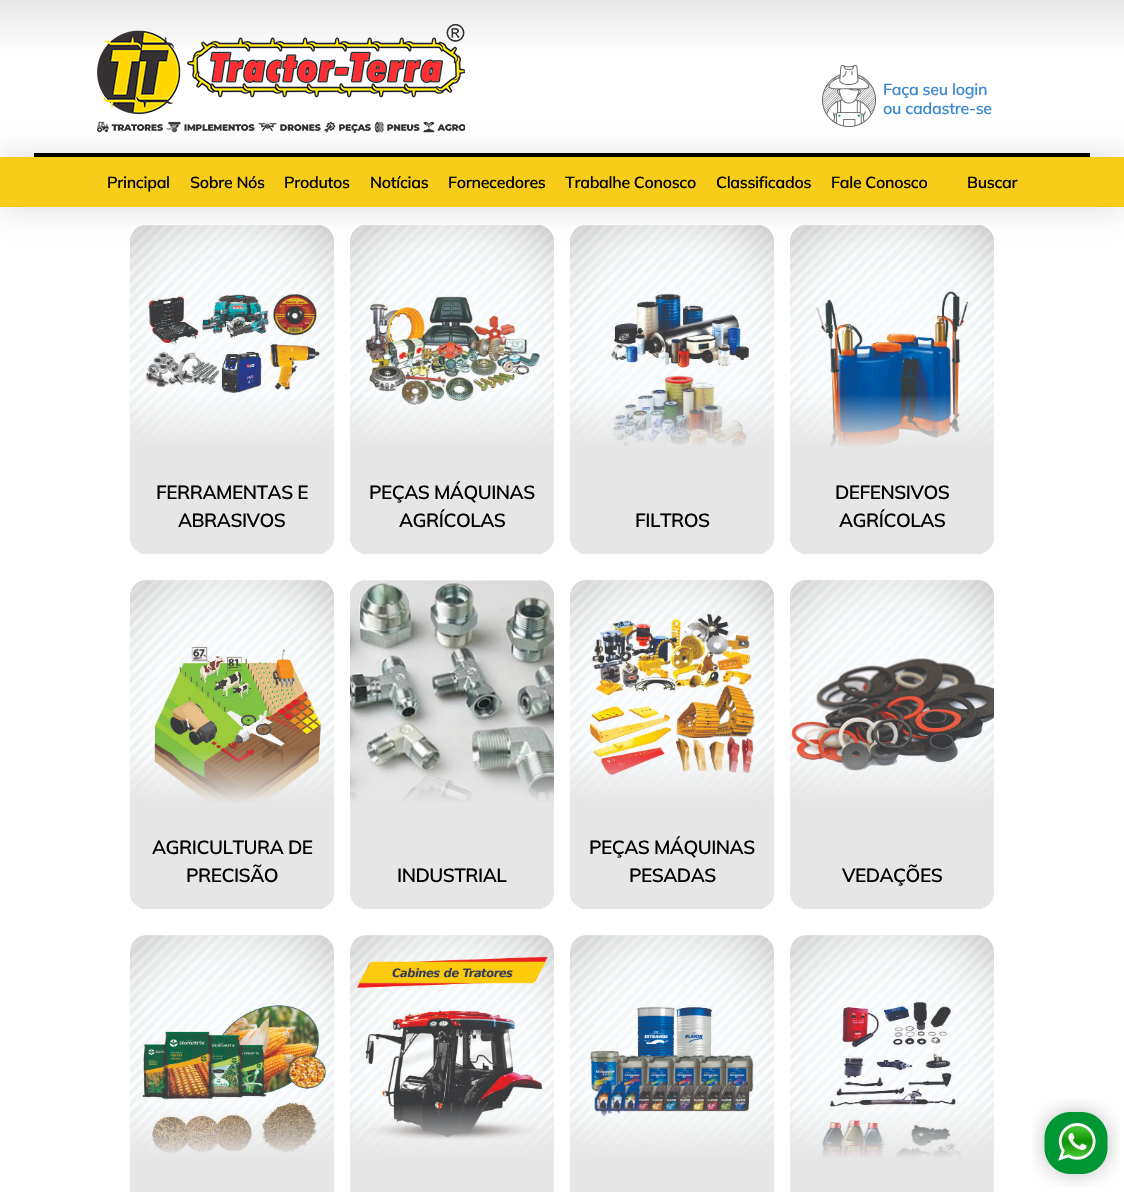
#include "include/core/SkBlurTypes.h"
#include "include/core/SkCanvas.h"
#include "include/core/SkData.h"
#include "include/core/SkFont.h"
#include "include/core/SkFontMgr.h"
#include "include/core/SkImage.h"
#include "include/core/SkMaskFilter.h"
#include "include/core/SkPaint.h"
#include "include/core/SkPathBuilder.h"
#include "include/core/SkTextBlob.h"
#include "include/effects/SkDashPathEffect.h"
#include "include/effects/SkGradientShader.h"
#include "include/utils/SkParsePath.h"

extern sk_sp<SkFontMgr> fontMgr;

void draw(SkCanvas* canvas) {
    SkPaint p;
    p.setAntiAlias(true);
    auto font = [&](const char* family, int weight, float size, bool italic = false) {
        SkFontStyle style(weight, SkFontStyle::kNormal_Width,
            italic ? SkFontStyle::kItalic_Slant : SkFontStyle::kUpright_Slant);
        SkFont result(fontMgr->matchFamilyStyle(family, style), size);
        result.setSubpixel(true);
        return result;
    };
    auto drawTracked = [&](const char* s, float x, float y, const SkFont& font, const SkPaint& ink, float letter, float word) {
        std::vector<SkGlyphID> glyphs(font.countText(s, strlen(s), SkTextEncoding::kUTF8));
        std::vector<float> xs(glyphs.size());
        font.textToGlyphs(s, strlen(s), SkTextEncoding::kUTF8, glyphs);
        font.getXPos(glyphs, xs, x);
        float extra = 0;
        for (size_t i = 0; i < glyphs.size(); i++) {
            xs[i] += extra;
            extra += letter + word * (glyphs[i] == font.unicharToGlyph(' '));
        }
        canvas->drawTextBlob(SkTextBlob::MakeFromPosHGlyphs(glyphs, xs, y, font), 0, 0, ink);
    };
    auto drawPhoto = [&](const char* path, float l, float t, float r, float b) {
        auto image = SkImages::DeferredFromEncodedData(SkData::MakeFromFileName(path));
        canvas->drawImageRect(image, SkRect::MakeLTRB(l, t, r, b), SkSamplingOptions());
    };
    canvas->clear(0xFFFFFFFF);
    {
        const SkColor colors[] = {0xFFE8E8E8, 0xFFFFFFFF};
        const float stops[] = {0.01f, 0.35f};
        const SkPoint ends[] = {{562, 0}, {562, 157}};
        p.setShader(SkGradientShader::MakeLinear(ends, colors, stops, 2, SkTileMode::kClamp));
        p.setAlpha(255);
    }
    canvas->drawRect(SkRect::MakeLTRB(0, 0, 1124, 49), p);
    drawPhoto("media/1.png", 97, 24, 465, 133);
    drawPhoto("media/2.png", 822, 65, 876, 127);
    auto font1 = font("Mulish", 600, 16);
    p.setShader(nullptr);
    p.setColor(0xFF3988D0);
    drawTracked("Faça seu login", 883, 95, font1, p, -0.25f, 0);
    drawTracked("ou cadastre-se", 883, 114, font1, p, -0.25f, 0);
    p.setColor(0xFFD8C4A3);
    canvas->drawRoundRect(SkRect::MakeLTRB(128.5f, 223.5f, 335.5f, 555.5f), 18.5f, 18.5f, p);
    p.setStyle(SkPaint::kStroke_Style);
    p.setStrokeWidth(3);
    p.setColor(0xFFFFFFFF);
    canvas->drawRoundRect(SkRect::MakeLTRB(128.5f, 223.5f, 335.5f, 555.5f), 18.5f, 18.5f, p);
    drawPhoto("media/3.png", 130, 225, 334, 448);
    p.setStyle(SkPaint::kFill_Style);
    p.setColor(0xFFD8C4A3);
    canvas->drawRoundRect(SkRect::MakeLTRB(348.5f, 223.5f, 555.5f, 555.5f), 18.5f, 18.5f, p);
    p.setStyle(SkPaint::kStroke_Style);
    p.setColor(0xFFFFFFFF);
    canvas->drawRoundRect(SkRect::MakeLTRB(348.5f, 223.5f, 555.5f, 555.5f), 18.5f, 18.5f, p);
    drawPhoto("media/4.png", 350, 225, 554, 448);
    p.setStyle(SkPaint::kFill_Style);
    p.setColor(0xFFD8C4A3);
    canvas->drawRoundRect(SkRect::MakeLTRB(568.5f, 223.5f, 775.5f, 555.5f), 18.5f, 18.5f, p);
    p.setStyle(SkPaint::kStroke_Style);
    p.setColor(0xFFFFFFFF);
    canvas->drawRoundRect(SkRect::MakeLTRB(568.5f, 223.5f, 775.5f, 555.5f), 18.5f, 18.5f, p);
    drawPhoto("media/5.png", 570, 225, 774, 448);
    p.setStyle(SkPaint::kFill_Style);
    p.setColor(0xFFD8C4A3);
    canvas->drawRoundRect(SkRect::MakeLTRB(788.5f, 223.5f, 995.5f, 555.5f), 18.5f, 18.5f, p);
    p.setStyle(SkPaint::kStroke_Style);
    p.setColor(0xFFFFFFFF);
    canvas->drawRoundRect(SkRect::MakeLTRB(788.5f, 223.5f, 995.5f, 555.5f), 18.5f, 18.5f, p);
    drawPhoto("media/6.png", 790, 225, 994, 448);
    p.setStyle(SkPaint::kFill_Style);
    p.setColor(0x26000000);
    p.setMaskFilter(SkMaskFilter::MakeBlur(kNormal_SkBlurStyle, 15));
    canvas->drawRect(SkRect::MakeLTRB(0, 157, 1124, 207), p);
    p.setMaskFilter(nullptr);
    p.setColor(0xFFF8CD1A);
    canvas->drawRect(SkRect::MakeLTRB(0, 157, 1124, 207), p);
    p.setColor(0xFF000000);
    canvas->drawRect(SkRect::MakeLTRB(34, 153, 1090, 157), p);
    {
        const struct { const char* s; float x, y; } items[] = {
            {"Principal", 107, 188},
            {"Sobre Nós", 190, 188},
            {"Produtos", 284, 188},
            {"Notícias", 370, 188},
            {"Fornecedores", 448, 188},
            {"Trabalhe Conosco", 565, 188},
            {"Classificados", 716, 188},
            {"Fale Conosco", 831, 188},
            {"Buscar", 967, 188},
        };
        for (auto [s, x, y] : items) {
            drawTracked(s, x, y, font1, p, -0.3f, 0);
        }
    }
    {
        const SkColor colors[] = {0x00E6E6E6, 0xFFE6E6E6};
        const float stops[] = {0, 0.34f};
        const SkPoint ends[] = {{232, 394}, {232, 554}};
        p.setShader(SkGradientShader::MakeLinear(ends, colors, stops, 2, SkTileMode::kClamp));
        p.setAlpha(255);
    }
    canvas->drawPath(SkPathBuilder().moveTo(130, 394).lineTo(334, 394).lineTo(334, 537).cubicTo(334, 546.5f, 326.5f, 554, 317, 554).lineTo(147, 554).cubicTo(137.5f, 554, 130, 546.5f, 130, 537).close().detach(), p);
    auto font2 = font("Mulish", 600, 19);
    p.setShader(nullptr);
    p.setColor(0xFF000000);
    drawTracked("FERRAMENTAS E", 156, 499, font2, p, -0.5f, 0);
    drawTracked("ABRASIVOS", 178, 527, font2, p, -0.5f, 0);
    {
        const SkColor colors[] = {0x00E6E6E6, 0xFFE6E6E6};
        const float stops[] = {0, 0.34f};
        const SkPoint ends[] = {{452, 394}, {452, 554}};
        p.setShader(SkGradientShader::MakeLinear(ends, colors, stops, 2, SkTileMode::kClamp));
        p.setAlpha(255);
    }
    canvas->drawPath(SkPathBuilder().moveTo(350, 394).lineTo(554, 394).lineTo(554, 537).cubicTo(554, 546.5f, 546.5f, 554, 537, 554).lineTo(367, 554).cubicTo(357.5f, 554, 350, 546.5f, 350, 537).close().detach(), p);
    p.setShader(nullptr);
    p.setColor(0xFF000000);
    drawTracked("PEÇAS MÁQUINAS", 369, 499, font2, p, -0.5f, 0);
    drawTracked("AGRÍCOLAS", 399, 527, font2, p, -0.5f, 0);
    {
        const SkColor colors[] = {0x00E6E6E6, 0xFFE6E6E6};
        const float stops[] = {0, 0.34f};
        const SkPoint ends[] = {{672, 394}, {672, 554}};
        p.setShader(SkGradientShader::MakeLinear(ends, colors, stops, 2, SkTileMode::kClamp));
        p.setAlpha(255);
    }
    canvas->drawPath(SkPathBuilder().moveTo(570, 394).lineTo(774, 394).lineTo(774, 537).cubicTo(774, 546.5f, 766.5f, 554, 757, 554).lineTo(587, 554).cubicTo(577.5f, 554, 570, 546.5f, 570, 537).close().detach(), p);
    p.setShader(nullptr);
    p.setColor(0xFF000000);
    drawTracked("FILTROS", 635, 527, font2, p, -0.5f, 0);
    {
        const SkColor colors[] = {0x00E6E6E6, 0xFFE6E6E6};
        const float stops[] = {0, 0.34f};
        const SkPoint ends[] = {{892, 394}, {892, 554}};
        p.setShader(SkGradientShader::MakeLinear(ends, colors, stops, 2, SkTileMode::kClamp));
        p.setAlpha(255);
    }
    canvas->drawPath(SkPathBuilder().moveTo(790, 394).lineTo(994, 394).lineTo(994, 537).cubicTo(994, 546.5f, 986.5f, 554, 977, 554).lineTo(807, 554).cubicTo(797.5f, 554, 790, 546.5f, 790, 537).close().detach(), p);
    p.setShader(nullptr);
    p.setColor(0xFF000000);
    drawTracked("DEFENSIVOS", 835, 499, font2, p, -0.5f, 0);
    drawTracked("AGRÍCOLAS", 839, 527, font2, p, -0.5f, 0);
    p.setColor(0xFFD8C4A3);
    canvas->drawRoundRect(SkRect::MakeLTRB(128.5f, 578.5f, 335.5f, 910.5f), 18.5f, 18.5f, p);
    p.setStyle(SkPaint::kStroke_Style);
    p.setColor(0xFFFFFFFF);
    canvas->drawRoundRect(SkRect::MakeLTRB(128.5f, 578.5f, 335.5f, 910.5f), 18.5f, 18.5f, p);
    drawPhoto("media/7.png", 130, 580, 334, 803);
    p.setStyle(SkPaint::kFill_Style);
    {
        const SkColor colors[] = {0x00E6E6E6, 0xFFE6E6E6};
        const float stops[] = {0, 0.34f};
        const SkPoint ends[] = {{232, 749}, {232, 909}};
        p.setShader(SkGradientShader::MakeLinear(ends, colors, stops, 2, SkTileMode::kClamp));
        p.setAlpha(255);
    }
    canvas->drawPath(SkPathBuilder().moveTo(130, 749).lineTo(334, 749).lineTo(334, 892).cubicTo(334, 901.5f, 326.5f, 909, 317, 909).lineTo(147, 909).cubicTo(137.5f, 909, 130, 901.5f, 130, 892).close().detach(), p);
    p.setShader(nullptr);
    p.setColor(0xFF000000);
    drawTracked("AGRICULTURA DE", 152, 854, font2, p, -0.5f, 0);
    drawTracked("PRECISÃO", 186, 882, font2, p, -0.5f, 0);
    p.setColor(0xFFD8C4A3);
    canvas->drawRoundRect(SkRect::MakeLTRB(348.5f, 578.5f, 555.5f, 910.5f), 18.5f, 18.5f, p);
    p.setStyle(SkPaint::kStroke_Style);
    p.setColor(0xFFFFFFFF);
    canvas->drawRoundRect(SkRect::MakeLTRB(348.5f, 578.5f, 555.5f, 910.5f), 18.5f, 18.5f, p);
    drawPhoto("media/8.png", 350, 580, 554, 803);
    p.setStyle(SkPaint::kFill_Style);
    {
        const SkColor colors[] = {0x00E6E6E6, 0xFFE6E6E6};
        const float stops[] = {0, 0.34f};
        const SkPoint ends[] = {{452, 749}, {452, 909}};
        p.setShader(SkGradientShader::MakeLinear(ends, colors, stops, 2, SkTileMode::kClamp));
        p.setAlpha(255);
    }
    canvas->drawPath(SkPathBuilder().moveTo(350, 749).lineTo(554, 749).lineTo(554, 892).cubicTo(554, 901.5f, 546.5f, 909, 537, 909).lineTo(367, 909).cubicTo(357.5f, 909, 350, 901.5f, 350, 892).close().detach(), p);
    p.setShader(nullptr);
    p.setColor(0xFF000000);
    drawTracked("INDUSTRIAL", 397, 882, font2, p, -0.5f, 0);
    p.setColor(0xFFD8C4A3);
    canvas->drawRoundRect(SkRect::MakeLTRB(568.5f, 578.5f, 775.5f, 910.5f), 18.5f, 18.5f, p);
    p.setStyle(SkPaint::kStroke_Style);
    p.setColor(0xFFFFFFFF);
    canvas->drawRoundRect(SkRect::MakeLTRB(568.5f, 578.5f, 775.5f, 910.5f), 18.5f, 18.5f, p);
    drawPhoto("media/9.png", 570, 580, 774, 803);
    p.setStyle(SkPaint::kFill_Style);
    {
        const SkColor colors[] = {0x00E6E6E6, 0xFFE6E6E6};
        const float stops[] = {0, 0.34f};
        const SkPoint ends[] = {{672, 749}, {672, 909}};
        p.setShader(SkGradientShader::MakeLinear(ends, colors, stops, 2, SkTileMode::kClamp));
        p.setAlpha(255);
    }
    canvas->drawPath(SkPathBuilder().moveTo(570, 749).lineTo(774, 749).lineTo(774, 892).cubicTo(774, 901.5f, 766.5f, 909, 757, 909).lineTo(587, 909).cubicTo(577.5f, 909, 570, 901.5f, 570, 892).close().detach(), p);
    p.setShader(nullptr);
    p.setColor(0xFF000000);
    drawTracked("PEÇAS MÁQUINAS", 589, 854, font2, p, -0.5f, 0);
    drawTracked("PESADAS", 629, 882, font2, p, -0.5f, 0);
    p.setColor(0xFFD8C4A3);
    canvas->drawRoundRect(SkRect::MakeLTRB(788.5f, 578.5f, 995.5f, 910.5f), 18.5f, 18.5f, p);
    p.setStyle(SkPaint::kStroke_Style);
    p.setColor(0xFFFFFFFF);
    canvas->drawRoundRect(SkRect::MakeLTRB(788.5f, 578.5f, 995.5f, 910.5f), 18.5f, 18.5f, p);
    drawPhoto("media/10.png", 790, 580, 994, 803);
    p.setStyle(SkPaint::kFill_Style);
    {
        const SkColor colors[] = {0x00E6E6E6, 0xFFE6E6E6};
        const float stops[] = {0, 0.34f};
        const SkPoint ends[] = {{892, 749}, {892, 909}};
        p.setShader(SkGradientShader::MakeLinear(ends, colors, stops, 2, SkTileMode::kClamp));
        p.setAlpha(255);
    }
    canvas->drawPath(SkPathBuilder().moveTo(790, 749).lineTo(994, 749).lineTo(994, 892).cubicTo(994, 901.5f, 986.5f, 909, 977, 909).lineTo(807, 909).cubicTo(797.5f, 909, 790, 901.5f, 790, 892).close().detach(), p);
    p.setShader(nullptr);
    p.setColor(0xFF000000);
    drawTracked("VEDAÇÕES", 842, 882, font2, p, -0.5f, 0);
    drawPhoto("media/11.png", 130, 935, 334, 1192);
    drawPhoto("media/12.png", 350, 935, 554, 1192);
    drawPhoto("media/13.png", 570, 935, 774, 1192);
    drawPhoto("media/14.png", 790, 935, 994, 1192);
    drawPhoto("media/15.png", 1032, 1099, 1120, 1187);
}
